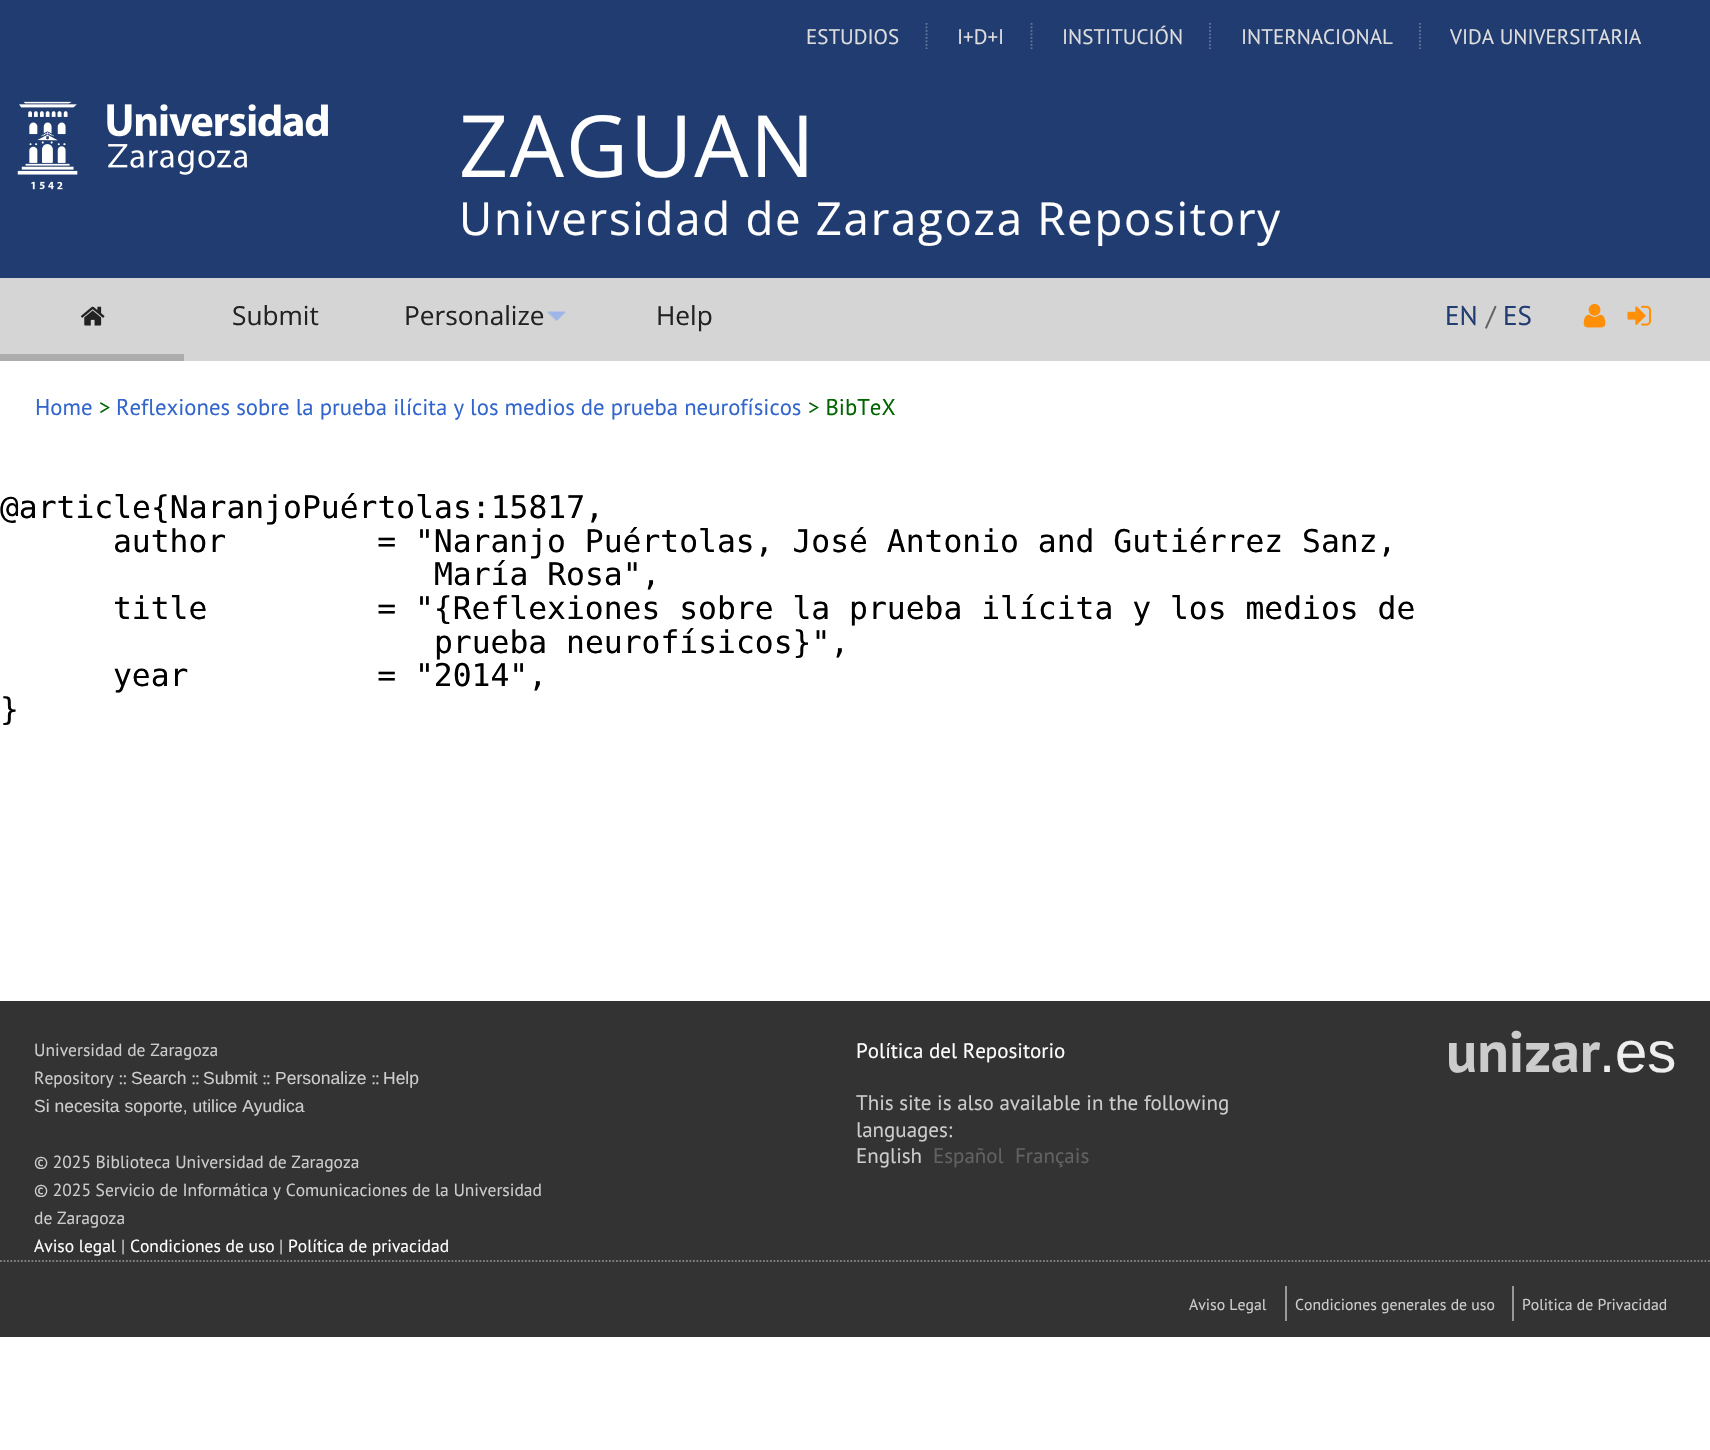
#include "include/core/SkBlurTypes.h"
#include "include/core/SkCanvas.h"
#include "include/core/SkData.h"
#include "include/core/SkFont.h"
#include "include/core/SkFontMgr.h"
#include "include/core/SkImage.h"
#include "include/core/SkMaskFilter.h"
#include "include/core/SkPaint.h"
#include "include/core/SkPathBuilder.h"
#include "include/core/SkTextBlob.h"
#include "include/effects/SkDashPathEffect.h"
#include "include/effects/SkGradientShader.h"
#include "include/utils/SkParsePath.h"

extern sk_sp<SkFontMgr> fontMgr;

void draw(SkCanvas* canvas) {
    SkPaint p;
    p.setAntiAlias(true);
    auto font = [&](const char* family, int weight, float size, bool italic = false) {
        SkFontStyle style(weight, SkFontStyle::kNormal_Width,
            italic ? SkFontStyle::kItalic_Slant : SkFontStyle::kUpright_Slant);
        SkFont result(fontMgr->matchFamilyStyle(family, style), size);
        result.setSubpixel(true);
        return result;
    };
    auto drawTracked = [&](const char* s, float x, float y, const SkFont& font, const SkPaint& ink, float letter, float word) {
        std::vector<SkGlyphID> glyphs(font.countText(s, strlen(s), SkTextEncoding::kUTF8));
        std::vector<float> xs(glyphs.size());
        font.textToGlyphs(s, strlen(s), SkTextEncoding::kUTF8, glyphs);
        font.getXPos(glyphs, xs, x);
        float extra = 0;
        for (size_t i = 0; i < glyphs.size(); i++) {
            xs[i] += extra;
            extra += letter + word * (glyphs[i] == font.unicharToGlyph(' '));
        }
        canvas->drawTextBlob(SkTextBlob::MakeFromPosHGlyphs(glyphs, xs, y, font), 0, 0, ink);
    };
    auto drawPhoto = [&](const char* path, float l, float t, float r, float b) {
        auto image = SkImages::DeferredFromEncodedData(SkData::MakeFromFileName(path));
        canvas->drawImageRect(image, SkRect::MakeLTRB(l, t, r, b), SkSamplingOptions());
    };
    canvas->clear(0xFFFFFFFF);
    p.setColor(0xFF213C70);
    canvas->drawRect(SkRect::MakeLTRB(0, 0, 1710, 278), p);
    auto font1 = font("PT Sans", 400, 21);
    p.setColor(0xFFDDDDDD);
    canvas->drawString("ESTUDIOS", 806, 44, font1, p);
    p.setStyle(SkPaint::kStroke_Style);
    p.setStrokeWidth(1.8f);
    p.setColor(0xFF64779D);
    p.setPathEffect(SkDashPathEffect::Make({{1.75f, 1.75f}}, 0));
    canvas->drawPath(SkPathBuilder().moveTo(926.5f, 23).lineTo(926.5f, 49).detach(), p);
    p.setPathEffect(nullptr);
    p.setStyle(SkPaint::kFill_Style);
    p.setColor(0xFFDDDDDD);
    canvas->drawString("I+D+I", 957, 44, font1, p);
    p.setStyle(SkPaint::kStroke_Style);
    p.setColor(0xFF64779D);
    p.setPathEffect(SkDashPathEffect::Make({{1.75f, 1.75f}}, 0));
    canvas->drawPath(SkPathBuilder().moveTo(1031.5f, 23).lineTo(1031.5f, 49).detach(), p);
    p.setPathEffect(nullptr);
    p.setStyle(SkPaint::kFill_Style);
    p.setColor(0xFFDDDDDD);
    canvas->drawString("INSTITUCIÓN", 1062, 44, font1, p);
    p.setStyle(SkPaint::kStroke_Style);
    p.setColor(0xFF64779D);
    p.setPathEffect(SkDashPathEffect::Make({{1.75f, 1.75f}}, 0));
    canvas->drawPath(SkPathBuilder().moveTo(1210, 23).lineTo(1210, 49).detach(), p);
    p.setPathEffect(nullptr);
    p.setStyle(SkPaint::kFill_Style);
    p.setColor(0xFFDDDDDD);
    canvas->drawString("INTERNACIONAL", 1241, 44, font1, p);
    p.setStyle(SkPaint::kStroke_Style);
    p.setColor(0xFF64779D);
    p.setPathEffect(SkDashPathEffect::Make({{1.75f, 1.75f}}, 0));
    canvas->drawPath(SkPathBuilder().moveTo(1420, 23).lineTo(1420, 49).detach(), p);
    p.setPathEffect(nullptr);
    p.setStyle(SkPaint::kFill_Style);
    p.setColor(0xFFDDDDDD);
    canvas->drawString("VIDA UNIVERSITARIA", 1450, 44, font1, p);
    drawPhoto("media/1.png", 17, 101, 328, 190);
    auto font2 = font("Open Sans", 400, 85.75f);
    p.setColor(0xFFFFFFFF);
    drawTracked("ZAGUAN", 459, 177, font2, p, 1.75f, 0);
    auto font3 = font("Open Sans", 400, 45.5f);
    drawTracked("Universidad de Zaragoza Repository", 459, 235, font3, p, 1.75f, 0);
    p.setColor(0xFFD5D5D5);
    canvas->drawRect(SkRect::MakeLTRB(0, 278, 1710, 361), p);
    p.setColor(0xFFADADAD);
    canvas->drawRect(SkRect::MakeLTRB(0, 354, 184, 361), p);
    drawPhoto("media/2.png", 80, 306, 105, 326);
    auto font4 = font("Open Sans", 400, 26.25f);
    p.setColor(0xFF222222);
    canvas->drawString("Submit", 232, 325, font4, p);
    canvas->drawString("Personalize", 404, 325, font4, p);
    drawPhoto("media/3.png", 547, 311, 566, 321);
    canvas->drawString("Help", 656, 325, font4, p);
    auto font5 = font("PT Sans", 400, 27);
    p.setColor(0xFF223D72);
    canvas->drawString("EN", 1445, 325, font5, p);
    p.setColor(0xFF626262);
    canvas->drawString("/", 1486, 325, font5, p);
    p.setColor(0xFF223D72);
    canvas->drawString("ES", 1503, 325, font5, p);
    drawPhoto("media/4.png", 1583, 303, 1606, 328);
    drawPhoto("media/5.png", 1627, 305, 1651, 326);
    auto font6 = font("PT Sans", 400, 22.75f);
    p.setColor(0xFF3366CC);
    canvas->drawString("Home", 35, 415, font6, p);
    p.setColor(0xFF006600);
    canvas->drawString(">", 99, 415, font6, p);
    p.setColor(0xFF3366CC);
    canvas->drawString("Reflexiones sobre la prueba ilícita y los medios de prueba neurofísicos", 116, 415, font6, p);
    p.setColor(0xFF006600);
    canvas->drawString("> BibTeX", 808, 415, font6, p);
    auto font7 = font("DejaVu Sans Mono", 400, 31.35f);
    p.setColor(0xFF000000);
    {
        const struct { const char* s; float x, y; } items[] = {
            {"@article{NaranjoPuértolas:15817,", 0, 518},
            {"author        = \"Naranjo Puértolas, José Antonio and Gutiérrez Sanz,", 113, 552},
            {"María Rosa\",", 434, 585},
            {"title         = \"{Reflexiones sobre la prueba ilícita y los medios de", 113, 619},
            {"prueba neurofísicos}\",", 434, 653},
            {"year          = \"2014\",", 113, 686},
            {"}", 0, 720},
        };
        for (auto [s, x, y] : items) {
            canvas->drawString(s, x, y, font7, p);
        }
    }
    p.setColor(0xFF333333);
    canvas->drawRect(SkRect::MakeLTRB(0, 1001, 1710, 1337), p);
    auto font8 = font("PT Sans", 400, 17.5f);
    p.setColor(0xFFCCCCCC);
    canvas->drawString("Universidad de Zaragoza", 34, 1056, font8, p);
    canvas->drawString("Repository ::", 34, 1084, font8, p);
    auto font9 = font("Liberation Sans", 400, 17.5f);
    canvas->drawString("Search", 131, 1084, font9, p);
    canvas->drawString("::", 191, 1084, font8, p);
    canvas->drawString("Submit", 203, 1084, font9, p);
    canvas->drawString("::", 262, 1084, font8, p);
    canvas->drawString("Personalize", 275, 1084, font9, p);
    canvas->drawString("::", 371, 1084, font8, p);
    canvas->drawString("Help", 383, 1084, font9, p);
    canvas->drawString("Si necesita soporte, utilice Ayudica", 34, 1112, font9, p);
    {
        const struct { const char* s; float x, y; } items[] = {
            {"© 2025 Biblioteca Universidad de Zaragoza", 34, 1168},
            {"© 2025 Servicio de Informática y Comunicaciones de la Universidad", 34, 1196},
            {"de Zaragoza", 34, 1224},
        };
        for (auto [s, x, y] : items) {
            canvas->drawString(s, x, y, font8, p);
        }
    }
    p.setColor(0xFFFFFFFF);
    canvas->drawString("Aviso legal", 34, 1252, font8, p);
    p.setColor(0xFFCCCCCC);
    canvas->drawString("|", 121, 1252, font8, p);
    p.setColor(0xFFFFFFFF);
    canvas->drawString("Condiciones de uso", 130, 1252, font8, p);
    p.setColor(0xFFCCCCCC);
    canvas->drawString("|", 279, 1252, font8, p);
    p.setColor(0xFFFFFFFF);
    canvas->drawString("Política de privacidad", 288, 1252, font8, p);
    canvas->drawString("Política del Repositorio", 856, 1058, font1, p);
    p.setColor(0xFFCCCCCC);
    {
        const struct { const char* s; float x, y; } items[] = {
            {"This site is also available in the following", 856, 1110},
            {"languages:", 856, 1137},
            {"English", 856, 1163},
        };
        for (auto [s, x, y] : items) {
            canvas->drawString(s, x, y, font1, p);
        }
    }
    p.setColor(0xFF626262);
    canvas->drawString("Español", 933, 1163, font1, p);
    canvas->drawString("Français", 1015, 1163, font1, p);
    auto font10 = font("PT Sans", 700, 58);
    p.setColor(0xFFCCCCCC);
    canvas->drawString("unizar", 1446, 1072, font10, p);
    auto font11 = font("Liberation Sans", 400, 58);
    p.setColor(0xFFEEEEEE);
    canvas->drawString(".es", 1599, 1072, font11, p);
    p.setStyle(SkPaint::kStroke_Style);
    p.setColor(0xFF808080);
    p.setPathEffect(SkDashPathEffect::Make({{1.75f, 1.75f}}, 0));
    canvas->drawPath(SkPathBuilder().moveTo(-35, 1261).lineTo(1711.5f, 1261).detach(), p);
    p.setPathEffect(nullptr);
    auto font12 = font("PT Sans", 400, 15.75f);
    p.setStyle(SkPaint::kFill_Style);
    p.setColor(0xFFCCCCCC);
    canvas->drawString("Aviso Legal", 1189, 1310, font12, p);
    p.setColor(0xFF999999);
    canvas->drawRect(SkRect::MakeLTRB(1285, 1286, 1287, 1321), p);
    p.setColor(0xFFCCCCCC);
    canvas->drawString("Condiciones generales de uso", 1295, 1310, font12, p);
    p.setColor(0xFF999999);
    canvas->drawRect(SkRect::MakeLTRB(1512, 1286, 1514, 1321), p);
    p.setColor(0xFFCCCCCC);
    canvas->drawString("Politica de Privacidad", 1522, 1310, font12, p);
}
